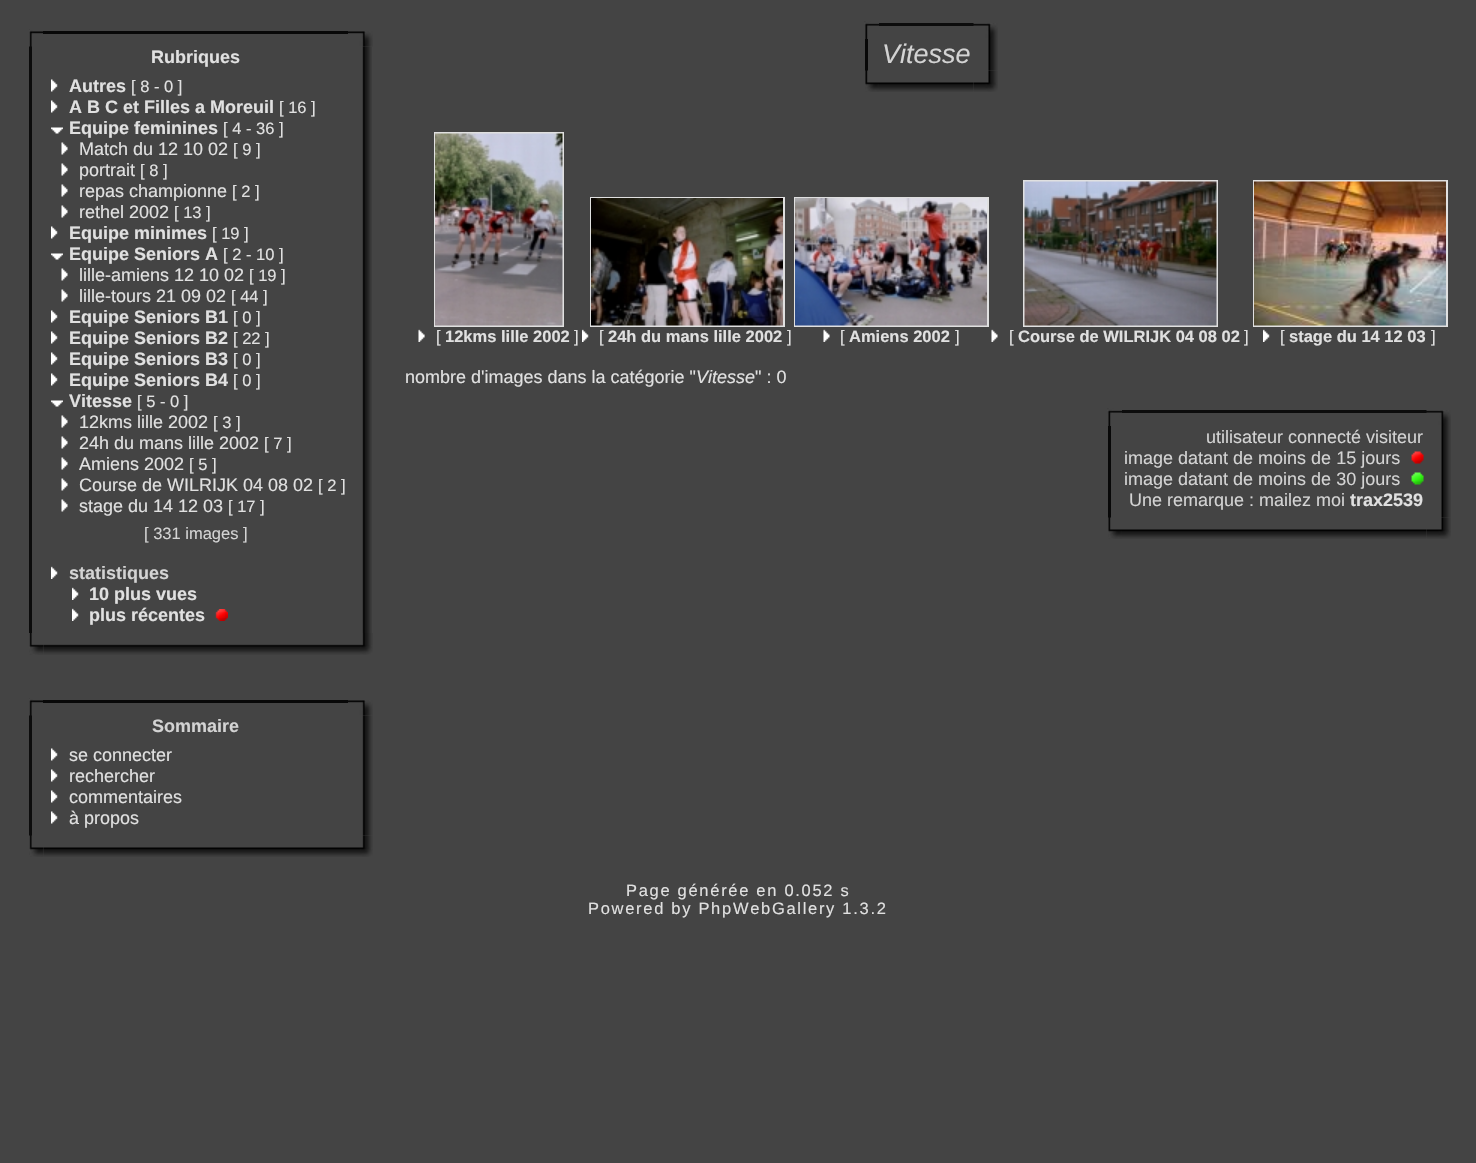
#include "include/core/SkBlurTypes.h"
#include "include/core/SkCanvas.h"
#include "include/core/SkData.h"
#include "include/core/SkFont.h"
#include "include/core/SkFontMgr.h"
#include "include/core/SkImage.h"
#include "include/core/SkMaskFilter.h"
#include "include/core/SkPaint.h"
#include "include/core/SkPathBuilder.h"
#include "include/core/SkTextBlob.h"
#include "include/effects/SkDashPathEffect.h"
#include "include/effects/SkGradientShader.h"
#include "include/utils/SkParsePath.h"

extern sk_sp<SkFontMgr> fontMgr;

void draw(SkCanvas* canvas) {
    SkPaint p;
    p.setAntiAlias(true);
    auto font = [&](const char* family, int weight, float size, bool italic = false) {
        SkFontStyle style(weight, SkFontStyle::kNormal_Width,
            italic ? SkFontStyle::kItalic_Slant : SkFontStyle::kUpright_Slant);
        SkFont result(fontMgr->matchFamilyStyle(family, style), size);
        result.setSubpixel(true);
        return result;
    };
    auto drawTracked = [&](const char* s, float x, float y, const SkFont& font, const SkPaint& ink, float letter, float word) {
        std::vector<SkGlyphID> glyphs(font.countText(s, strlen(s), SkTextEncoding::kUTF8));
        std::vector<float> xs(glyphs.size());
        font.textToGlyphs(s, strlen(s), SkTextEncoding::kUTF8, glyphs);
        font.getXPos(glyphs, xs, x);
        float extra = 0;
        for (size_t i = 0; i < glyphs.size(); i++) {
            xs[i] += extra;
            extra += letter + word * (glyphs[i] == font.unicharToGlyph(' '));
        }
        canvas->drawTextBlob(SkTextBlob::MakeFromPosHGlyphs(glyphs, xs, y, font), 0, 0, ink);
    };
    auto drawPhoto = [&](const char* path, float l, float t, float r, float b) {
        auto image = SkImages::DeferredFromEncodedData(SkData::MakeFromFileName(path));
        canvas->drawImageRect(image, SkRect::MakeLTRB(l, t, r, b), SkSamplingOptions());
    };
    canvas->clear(0xFF444444);
    p.setColor(0xFF0B0B0B);
    canvas->drawRect(SkRect::MakeLTRB(29, 46, 32, 633), p);
    drawPhoto("media/1.png", 29, 29, 44, 47);
    p.setColor(0xFF080808);
    canvas->drawRect(SkRect::MakeLTRB(43, 31, 348, 34), p);
    drawPhoto("media/8.png", 362, 46, 372, 633);
    drawPhoto("media/2.png", 348, 31, 373, 47);
    auto font1 = font("Liberation Sans", 700, 18);
    p.setColor(0xFFE0E0E0);
    canvas->drawString("Rubriques", 151, 63, font1, p);
    drawPhoto("media/3.png", 51, 79, 58, 92);
    canvas->drawString("Autres", 69, 92, font1, p);
    auto font2 = font("Liberation Sans", 400, 16.5f);
    canvas->drawString("[ 8 - 0 ]", 131, 92, font2, p);
    drawPhoto("media/3.png", 51, 100, 58, 113);
    canvas->drawString("A B C et Filles a Moreuil", 69, 113, font1, p);
    canvas->drawString("[ 16 ]", 279, 113, font2, p);
    drawPhoto("media/4.png", 51, 127, 63, 134);
    canvas->drawString("Equipe feminines", 69, 134, font1, p);
    canvas->drawString("[ 4 - 36 ]", 223, 134, font2, p);
    drawPhoto("media/5.png", 61, 142, 68, 155);
    auto font3 = font("Liberation Sans", 400, 18);
    canvas->drawString("Match du 12 10 02", 79, 155, font3, p);
    canvas->drawString("[ 9 ]", 233, 155, font2, p);
    drawPhoto("media/5.png", 61, 163, 68, 176);
    canvas->drawString("portrait", 79, 176, font3, p);
    canvas->drawString("[ 8 ]", 140, 176, font2, p);
    drawPhoto("media/5.png", 61, 184, 68, 197);
    canvas->drawString("repas championne", 79, 197, font3, p);
    canvas->drawString("[ 2 ]", 232, 197, font2, p);
    drawPhoto("media/5.png", 61, 205, 68, 218);
    canvas->drawString("rethel 2002", 79, 218, font3, p);
    canvas->drawString("[ 13 ]", 174, 218, font2, p);
    drawPhoto("media/3.png", 51, 226, 58, 239);
    canvas->drawString("Equipe minimes", 69, 239, font1, p);
    canvas->drawString("[ 19 ]", 212, 239, font2, p);
    drawPhoto("media/4.png", 51, 253, 63, 260);
    canvas->drawString("Equipe Seniors A", 69, 260, font1, p);
    canvas->drawString("[ 2 - 10 ]", 223, 260, font2, p);
    drawPhoto("media/5.png", 61, 268, 68, 281);
    canvas->drawString("lille-amiens 12 10 02", 79, 281, font3, p);
    canvas->drawString("[ 19 ]", 249, 281, font2, p);
    drawPhoto("media/5.png", 61, 289, 68, 302);
    canvas->drawString("lille-tours 21 09 02", 79, 302, font3, p);
    canvas->drawString("[ 44 ]", 231, 302, font2, p);
    drawPhoto("media/3.png", 51, 310, 58, 323);
    canvas->drawString("Equipe Seniors B1", 69, 323, font1, p);
    canvas->drawString("[ 0 ]", 233, 323, font2, p);
    drawPhoto("media/3.png", 51, 331, 58, 344);
    canvas->drawString("Equipe Seniors B2", 69, 344, font1, p);
    canvas->drawString("[ 22 ]", 233, 344, font2, p);
    drawPhoto("media/3.png", 51, 352, 58, 365);
    canvas->drawString("Equipe Seniors B3", 69, 365, font1, p);
    canvas->drawString("[ 0 ]", 233, 365, font2, p);
    drawPhoto("media/3.png", 51, 373, 58, 386);
    canvas->drawString("Equipe Seniors B4", 69, 386, font1, p);
    canvas->drawString("[ 0 ]", 233, 386, font2, p);
    drawPhoto("media/4.png", 51, 400, 63, 407);
    canvas->drawString("Vitesse", 69, 407, font1, p);
    canvas->drawString("[ 5 - 0 ]", 137, 407, font2, p);
    drawPhoto("media/5.png", 61, 415, 68, 428);
    canvas->drawString("12kms lille 2002", 79, 428, font3, p);
    canvas->drawString("[ 3 ]", 213, 428, font2, p);
    drawPhoto("media/5.png", 61, 436, 68, 449);
    canvas->drawString("24h du mans lille 2002", 79, 449, font3, p);
    canvas->drawString("[ 7 ]", 264, 449, font2, p);
    drawPhoto("media/5.png", 61, 457, 68, 470);
    canvas->drawString("Amiens 2002", 79, 470, font3, p);
    canvas->drawString("[ 5 ]", 189, 470, font2, p);
    drawPhoto("media/5.png", 61, 478, 68, 491);
    canvas->drawString("Course de WILRIJK 04 08 02", 79, 491, font3, p);
    canvas->drawString("[ 2 ]", 318, 491, font2, p);
    drawPhoto("media/5.png", 61, 499, 68, 512);
    canvas->drawString("stage du 14 12 03", 79, 512, font3, p);
    canvas->drawString("[ 17 ]", 228, 512, font2, p);
    p.setColor(0xFFD3D3D3);
    canvas->drawString("[ 331 images ]", 144, 539, font2, p);
    drawPhoto("media/6.png", 51, 566, 58, 579);
    canvas->drawString("statistiques", 69, 579, font1, p);
    drawPhoto("media/6.png", 72, 587, 79, 600);
    p.setColor(0xFFE0E0E0);
    canvas->drawString("10 plus vues", 89, 600, font1, p);
    drawPhoto("media/6.png", 72, 608, 79, 621);
    canvas->drawString("plus récentes", 89, 621, font1, p);
    drawPhoto("media/7.png", 215, 609, 228, 621);
    drawPhoto("media/9.png", 29, 633, 44, 655);
    drawPhoto("media/10.png", 43, 644, 348, 655);
    drawPhoto("media/11.png", 348, 633, 373, 655);
    p.setColor(0xFF0C0C0C);
    canvas->drawRect(SkRect::MakeLTRB(29, 715, 32, 836), p);
    drawPhoto("media/1.png", 29, 698, 44, 716);
    p.setColor(0xFF080808);
    canvas->drawRect(SkRect::MakeLTRB(43, 700, 348, 703), p);
    drawPhoto("media/13.png", 362, 715, 373, 836);
    drawPhoto("media/12.png", 348, 700, 373, 716);
    p.setColor(0xFFD3D3D3);
    canvas->drawString("Sommaire", 152, 732, font1, p);
    drawPhoto("media/3.png", 51, 748, 58, 761);
    p.setColor(0xFFE0E0E0);
    canvas->drawString("se connecter", 69, 761, font3, p);
    drawPhoto("media/3.png", 51, 769, 58, 782);
    canvas->drawString("rechercher", 69, 782, font3, p);
    drawPhoto("media/3.png", 51, 790, 58, 803);
    canvas->drawString("commentaires", 69, 803, font3, p);
    drawPhoto("media/3.png", 51, 811, 58, 824);
    canvas->drawString("à propos", 69, 824, font3, p);
    drawPhoto("media/14.png", 29, 835, 44, 857);
    drawPhoto("media/15.png", 43, 847, 348, 857);
    drawPhoto("media/16.png", 348, 835, 373, 857);
    drawPhoto("media/17.png", 864, 21, 879, 39);
    p.setColor(0xFF0C0C0C);
    canvas->drawRect(SkRect::MakeLTRB(879, 23, 974, 26), p);
    drawPhoto("media/18.png", 973, 23, 998, 39);
    p.setColor(0xFF080808);
    canvas->drawRect(SkRect::MakeLTRB(865, 39, 868, 71), p);
    auto font4 = font("Liberation Sans", 400, 27, true);
    p.setColor(0xFFD3D3D3);
    canvas->drawString("Vitesse", 882, 63, font4, p);
    drawPhoto("media/19.png", 988, 39, 998, 71);
    drawPhoto("media/20.png", 865, 70, 879, 92);
    drawPhoto("media/21.png", 879, 82, 974, 92);
    drawPhoto("media/22.png", 973, 70, 998, 92);
    p.setStyle(SkPaint::kStroke_Style);
    p.setStrokeWidth(2);
    p.setColor(0xFFE0E0E0);
    canvas->drawRect(SkRect::MakeLTRB(435, 133, 563, 326), p);
    drawPhoto("media/23.png", 435, 133, 563, 326);
    drawPhoto("media/24.png", 418, 329, 425, 342);
    p.setStyle(SkPaint::kFill_Style);
    canvas->drawString("[", 436, 342, font2, p);
    auto font5 = font("Liberation Sans", 700, 16.5f);
    canvas->drawString("12kms lille 2002", 445, 342, font5, p);
    canvas->drawString("]", 574, 342, font2, p);
    p.setStyle(SkPaint::kStroke_Style);
    canvas->drawRect(SkRect::MakeLTRB(591, 198, 784, 326), p);
    drawPhoto("media/25.png", 591, 198, 783, 326);
    drawPhoto("media/26.png", 582, 329, 589, 342);
    p.setStyle(SkPaint::kFill_Style);
    canvas->drawString("[", 599, 342, font2, p);
    canvas->drawString("24h du mans lille 2002", 608, 342, font5, p);
    canvas->drawString("]", 787, 342, font2, p);
    p.setStyle(SkPaint::kStroke_Style);
    canvas->drawRect(SkRect::MakeLTRB(795, 198, 988, 326), p);
    drawPhoto("media/27.png", 795, 198, 987, 326);
    drawPhoto("media/28.png", 823, 329, 830, 342);
    p.setStyle(SkPaint::kFill_Style);
    canvas->drawString("[", 840, 342, font2, p);
    canvas->drawString("Amiens 2002", 849, 342, font5, p);
    canvas->drawString("]", 955, 342, font2, p);
    p.setStyle(SkPaint::kStroke_Style);
    canvas->drawRect(SkRect::MakeLTRB(1024, 181, 1217, 326), p);
    drawPhoto("media/29.png", 1024, 181, 1217, 326);
    drawPhoto("media/28.png", 991, 329, 998, 342);
    p.setStyle(SkPaint::kFill_Style);
    canvas->drawString("[", 1009, 342, font2, p);
    canvas->drawString("Course de WILRIJK 04 08 02", 1018, 342, font5, p);
    canvas->drawString("]", 1244, 342, font2, p);
    p.setStyle(SkPaint::kStroke_Style);
    canvas->drawRect(SkRect::MakeLTRB(1254, 181, 1447, 326), p);
    drawPhoto("media/30.png", 1254, 181, 1446, 326);
    drawPhoto("media/26.png", 1263, 329, 1270, 342);
    p.setStyle(SkPaint::kFill_Style);
    canvas->drawString("[", 1280, 342, font2, p);
    canvas->drawString("stage du 14 12 03", 1289, 342, font5, p);
    canvas->drawString("]", 1431, 342, font2, p);
    canvas->drawString("nombre d'images dans la catégorie \"", 405, 383, font3, p);
    auto font6 = font("Liberation Sans", 400, 18, true);
    canvas->drawString("Vitesse", 696, 383, font6, p);
    canvas->drawString("\" : 0", 755, 383, font3, p);
    drawPhoto("media/31.png", 1107, 408, 1122, 426);
    p.setColor(0xFF0C0C0C);
    canvas->drawRect(SkRect::MakeLTRB(1122, 410, 1427, 413), p);
    drawPhoto("media/32.png", 1426, 410, 1451, 426);
    p.setColor(0xFF080808);
    canvas->drawRect(SkRect::MakeLTRB(1108, 426, 1111, 518), p);
    p.setColor(0xFFD3D3D3);
    canvas->drawString("utilisateur connecté visiteur", 1206, 443, font3, p);
    canvas->drawString("image datant de moins de 15 jours", 1124, 464, font3, p);
    drawPhoto("media/33.png", 1411, 451, 1424, 464);
    canvas->drawString("image datant de moins de 30 jours", 1124, 485, font3, p);
    drawPhoto("media/34.png", 1411, 472, 1424, 485);
    canvas->drawString("Une remarque : mailez moi", 1129, 506, font3, p);
    p.setColor(0xFFE0E0E0);
    canvas->drawString("trax2539", 1350, 506, font1, p);
    drawPhoto("media/35.png", 1441, 426, 1451, 518);
    drawPhoto("media/36.png", 1108, 517, 1122, 539);
    drawPhoto("media/37.png", 1122, 529, 1427, 539);
    drawPhoto("media/38.png", 1426, 517, 1451, 539);
    drawTracked("Page générée en 0.052 s", 626, 896, font2, p, 1.7f, 0);
    drawTracked("Powered by PhpWebGallery 1.3.2", 588, 914, font2, p, 1.7f, 0);
}
